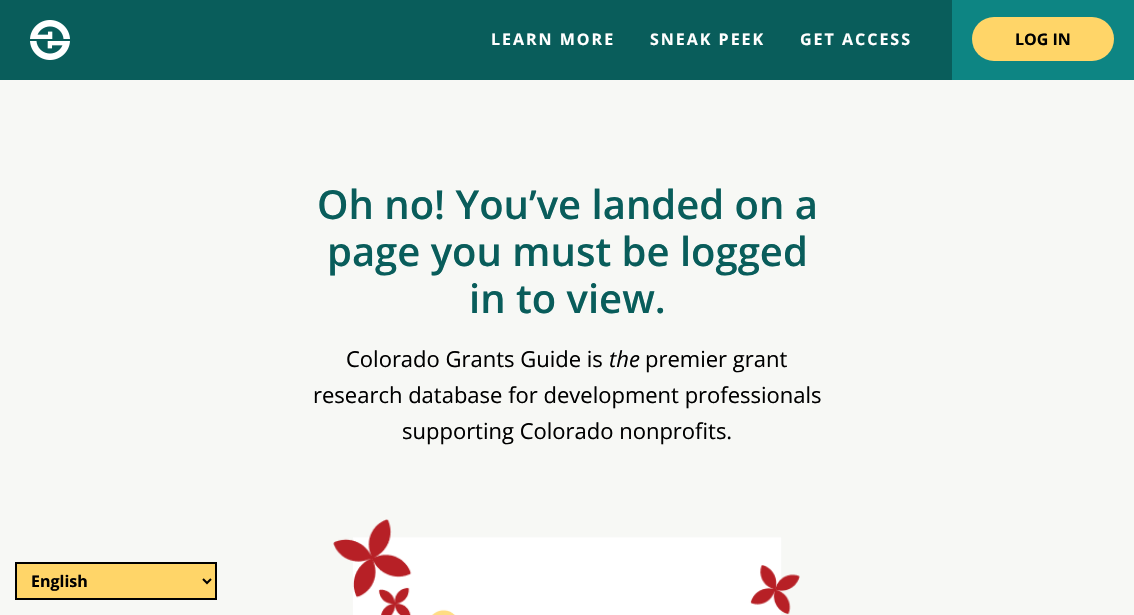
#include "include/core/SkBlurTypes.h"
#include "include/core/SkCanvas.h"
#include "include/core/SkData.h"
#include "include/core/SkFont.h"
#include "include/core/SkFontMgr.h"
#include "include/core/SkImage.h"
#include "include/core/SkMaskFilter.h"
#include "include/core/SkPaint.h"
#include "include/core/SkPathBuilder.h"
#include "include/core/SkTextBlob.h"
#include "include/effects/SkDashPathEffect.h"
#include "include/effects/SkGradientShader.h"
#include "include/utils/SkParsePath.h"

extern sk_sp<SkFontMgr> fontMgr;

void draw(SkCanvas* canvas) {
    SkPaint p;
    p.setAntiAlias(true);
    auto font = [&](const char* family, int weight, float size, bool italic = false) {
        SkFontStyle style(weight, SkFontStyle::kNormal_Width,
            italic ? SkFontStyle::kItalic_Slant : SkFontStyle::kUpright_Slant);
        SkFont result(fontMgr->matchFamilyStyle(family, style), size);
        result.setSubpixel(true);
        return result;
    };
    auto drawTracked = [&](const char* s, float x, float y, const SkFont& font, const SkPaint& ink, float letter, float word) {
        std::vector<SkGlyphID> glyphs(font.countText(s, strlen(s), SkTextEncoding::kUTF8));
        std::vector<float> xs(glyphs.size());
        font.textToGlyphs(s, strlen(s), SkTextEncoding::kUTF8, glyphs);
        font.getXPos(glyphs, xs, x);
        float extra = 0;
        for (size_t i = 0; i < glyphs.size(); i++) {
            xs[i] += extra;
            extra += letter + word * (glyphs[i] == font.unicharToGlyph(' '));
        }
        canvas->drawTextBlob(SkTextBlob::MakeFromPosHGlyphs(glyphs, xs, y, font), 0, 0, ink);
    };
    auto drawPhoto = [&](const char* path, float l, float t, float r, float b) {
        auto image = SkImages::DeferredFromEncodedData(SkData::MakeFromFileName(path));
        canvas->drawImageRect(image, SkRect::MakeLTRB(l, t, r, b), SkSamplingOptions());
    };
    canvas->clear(0xFFF7F8F5);
    p.setColor(0xFF095D5B);
    canvas->drawRect(SkRect::MakeLTRB(0, 0, 952, 80), p);
    drawPhoto("media/1.png", 30, 20, 70, 60);
    auto font1 = font("Open Sans", 700, 16);
    p.setColor(0xFFFFFFFF);
    {
        const struct { const char* s; float x, y; } items[] = {
            {"LEARN MORE", 491, 45},
            {"SNEAK PEEK", 650, 45},
            {"GET ACCESS", 800, 45},
        };
        for (auto [s, x, y] : items) {
            drawTracked(s, x, y, font1, p, 2, 0);
        }
    }
    p.setColor(0xFF0D8583);
    canvas->drawRect(SkRect::MakeLTRB(952, 0, 1134, 80), p);
    p.setColor(0xFFFFD568);
    canvas->drawRoundRect(SkRect::MakeLTRB(972, 17, 1114, 61), 22, 22, p);
    p.setColor(0xFF000000);
    canvas->drawString("LOG IN", 1015, 45, font1, p);
    auto font2 = font("Open Sans", 600, 40);
    p.setColor(0xFF095D5B);
    {
        const struct { const char* s; float x, y; } items[] = {
            {"Oh no! You’ve landed on a", 317, 219},
            {"page you must be logged", 327, 266},
            {"in to view.", 469, 313},
        };
        for (auto [s, x, y] : items) {
            canvas->drawString(s, x, y, font2, p);
        }
    }
    auto font3 = font("Open Sans", 400, 22);
    p.setColor(0xFF000000);
    canvas->drawString("Colorado Grants Guide is", 346, 367, font3, p);
    auto font4 = font("Open Sans", 400, 22, true);
    canvas->drawString("the", 609, 367, font4, p);
    {
        const struct { const char* s; float x, y; } items[] = {
            {"premier grant", 645, 367},
            {"research database for development professionals", 313, 403},
            {"supporting Colorado nonprofits.", 402, 439},
        };
        for (auto [s, x, y] : items) {
            canvas->drawString(s, x, y, font3, p);
        }
    }
    drawPhoto("media/2.png", 333, 519, 800, 615);
    p.setColor(0xFFFFD568);
    canvas->drawRect(SkRect::MakeLTRB(16, 563, 216, 599), p);
    p.setStyle(SkPaint::kStroke_Style);
    p.setStrokeWidth(2);
    p.setColor(0xFF000000);
    canvas->drawRect(SkRect::MakeLTRB(16, 563, 216, 599), p);
    canvas->drawPath(SkPathBuilder().moveTo(203, 579).lineTo(207, 583).lineTo(211, 579).detach(), p);
    p.setStyle(SkPaint::kFill_Style);
    canvas->drawString("English", 31, 587, font1, p);
}
